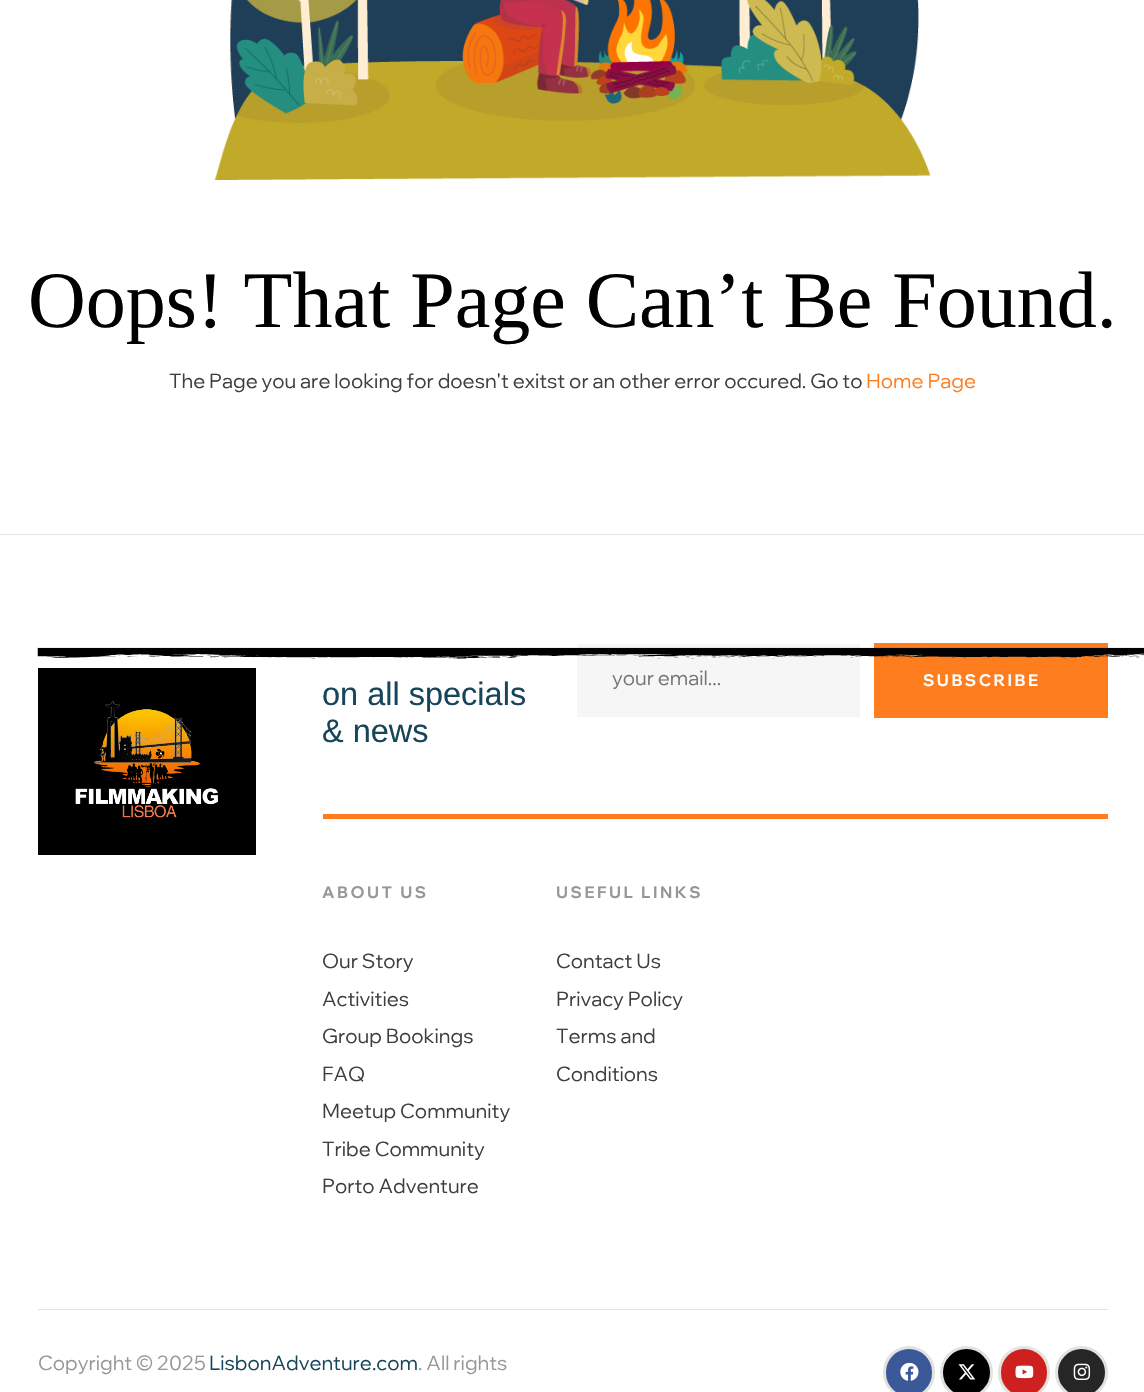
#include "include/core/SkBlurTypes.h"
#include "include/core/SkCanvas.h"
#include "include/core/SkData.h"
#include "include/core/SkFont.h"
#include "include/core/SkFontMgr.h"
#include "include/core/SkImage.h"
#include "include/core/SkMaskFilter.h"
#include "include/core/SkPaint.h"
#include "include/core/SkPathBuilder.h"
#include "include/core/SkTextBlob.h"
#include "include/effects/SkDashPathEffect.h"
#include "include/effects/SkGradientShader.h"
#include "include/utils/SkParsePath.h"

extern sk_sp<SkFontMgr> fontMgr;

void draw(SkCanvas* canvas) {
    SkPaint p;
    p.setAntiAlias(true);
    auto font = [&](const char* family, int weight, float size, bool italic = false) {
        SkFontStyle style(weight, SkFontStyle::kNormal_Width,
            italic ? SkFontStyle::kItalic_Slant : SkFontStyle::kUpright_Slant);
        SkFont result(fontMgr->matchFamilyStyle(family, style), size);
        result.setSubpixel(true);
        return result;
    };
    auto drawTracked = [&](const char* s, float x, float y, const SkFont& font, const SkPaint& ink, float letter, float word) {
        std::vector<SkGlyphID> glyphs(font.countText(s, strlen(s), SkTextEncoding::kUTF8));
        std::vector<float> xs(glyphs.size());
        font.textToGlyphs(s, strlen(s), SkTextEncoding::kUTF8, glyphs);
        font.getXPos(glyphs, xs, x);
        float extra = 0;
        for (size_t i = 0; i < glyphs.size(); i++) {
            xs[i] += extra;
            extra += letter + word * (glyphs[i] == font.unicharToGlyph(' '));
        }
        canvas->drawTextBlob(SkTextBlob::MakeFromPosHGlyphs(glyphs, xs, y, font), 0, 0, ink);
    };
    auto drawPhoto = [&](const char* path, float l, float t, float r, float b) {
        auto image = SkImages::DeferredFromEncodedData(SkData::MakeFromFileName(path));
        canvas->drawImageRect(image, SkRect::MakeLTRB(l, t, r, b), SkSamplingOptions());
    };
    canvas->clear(0xFFFFFFFF);
    drawPhoto("media/1.png", 214, 0, 931, 180);
    auto font1 = font("Liberation Serif", 400, 80);
    p.setColor(0xFF000000);
    canvas->drawString("Oops! That Page Can’t Be Found.", 28, 327, font1, p);
    auto font2 = font("Wix Madefor Display", 400, 20);
    p.setColor(0xFF3E3E3E);
    canvas->drawString("The Page you are looking for doesn't exitst or an other error occured. Go to", 169, 388, font2, p);
    p.setColor(0xFFFE7D1F);
    canvas->drawString("Home Page", 866, 388, font2, p);
    {
        const struct { float l, t, r, b; SkColor color; } items[] = {
            {0, 534, 1144, 535, 0xFFE2E2DE},
            {577, 644, 860, 717, 0xFFF6F6F6},
            {874, 643, 1108, 718, 0xFFFE7D1F},
        };
        for (auto [l, t, r, b, color] : items) {
            p.setColor(color);
            canvas->drawRect(SkRect::MakeLTRB(l, t, r, b), p);
        }
    }
    drawPhoto("media/2.png", 37, 647, 1144, 659);
    p.setColor(0xFF000000);
    canvas->drawRect(SkRect::MakeLTRB(38, 668, 256, 855), p);
    drawPhoto("media/3.png", 75, 701, 218, 818);
    p.setColor(0xFFFE7D1F);
    canvas->drawRect(SkRect::MakeLTRB(323, 814, 1108, 819), p);
    auto font3 = font("Liberation Sans", 400, 32.5f);
    p.setColor(0xFF17465A);
    canvas->drawString("on all specials", 322, 705, font3, p);
    canvas->drawString("& news", 322, 742, font3, p);
    p.setColor(0xFF757575);
    canvas->drawString("your email...", 612, 685, font2, p);
    auto font4 = font("Wix Madefor Display", 700, 16.25f);
    p.setColor(0xFFFFFFFF);
    drawTracked("SUBSCRIBE", 923, 686, font4, p, 2.5f, 0);
    p.setColor(0xFF979797);
    drawTracked("ABOUT US", 322, 898, font4, p, 2.5f, 0);
    p.setColor(0xFF3E3E3E);
    {
        const struct { const char* s; float x, y; } items[] = {
            {"Our Story", 322, 968},
            {"Activities", 322, 1006},
            {"Group Bookings", 322, 1043},
            {"FAQ", 322, 1081},
            {"Meetup Community", 322, 1118},
            {"Tribe Community", 322, 1156},
            {"Porto Adventure", 322, 1193},
        };
        for (auto [s, x, y] : items) {
            canvas->drawString(s, x, y, font2, p);
        }
    }
    p.setColor(0xFF979797);
    drawTracked("USEFUL LINKS", 556, 898, font4, p, 2.5f, 0);
    p.setColor(0xFF3E3E3E);
    {
        const struct { const char* s; float x, y; } items[] = {
            {"Contact Us", 556, 968},
            {"Privacy Policy", 556, 1006},
            {"Terms and", 556, 1043},
            {"Conditions", 556, 1081},
        };
        for (auto [s, x, y] : items) {
            canvas->drawString(s, x, y, font2, p);
        }
    }
    p.setColor(0xFFE2E2DE);
    canvas->drawRect(SkRect::MakeLTRB(38, 1309, 1108, 1310), p);
    p.setColor(0xFF979797);
    canvas->drawString("Copyright © 2025", 38, 1370, font2, p);
    p.setColor(0xFF17465A);
    canvas->drawString("LisbonAdventure.com", 209, 1370, font2, p);
    p.setColor(0xFF979797);
    canvas->drawString(". All rights", 418, 1370, font2, p);
    p.setColor(0xFF3B5998);
    canvas->drawRoundRect(SkRect::MakeLTRB(884.5f, 1347.5f, 933.5f, 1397.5f), 24.5f, 24.5f, p);
    p.setStyle(SkPaint::kStroke_Style);
    p.setStrokeWidth(3);
    p.setColor(0xFFE2E2DE);
    canvas->drawRoundRect(SkRect::MakeLTRB(884.5f, 1347.5f, 933.5f, 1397.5f), 24.5f, 24.5f, p);
    drawPhoto("media/4.png", 900, 1363, 919, 1381);
    p.setStyle(SkPaint::kFill_Style);
    p.setColor(0xFF000000);
    canvas->drawCircle(966.5f, 1372.5f, 25, p);
    p.setStyle(SkPaint::kStroke_Style);
    p.setColor(0xFFE2E2DE);
    canvas->drawCircle(966.5f, 1372.5f, 25, p);
    drawPhoto("media/5.png", 958, 1364, 976, 1380);
    p.setStyle(SkPaint::kFill_Style);
    p.setColor(0xFFCD201F);
    canvas->drawRoundRect(SkRect::MakeLTRB(999.5f, 1347.5f, 1048.5f, 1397.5f), 24.5f, 24.5f, p);
    p.setStyle(SkPaint::kStroke_Style);
    p.setColor(0xFFE2E2DE);
    canvas->drawRoundRect(SkRect::MakeLTRB(999.5f, 1347.5f, 1048.5f, 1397.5f), 24.5f, 24.5f, p);
    drawPhoto("media/6.png", 1015, 1365, 1034, 1379);
    p.setStyle(SkPaint::kFill_Style);
    p.setColor(0xFF262626);
    canvas->drawCircle(1081.5f, 1372.5f, 25, p);
    p.setStyle(SkPaint::kStroke_Style);
    p.setColor(0xFFE2E2DE);
    canvas->drawCircle(1081.5f, 1372.5f, 25, p);
    drawPhoto("media/7.png", 1073, 1363, 1091, 1380);
}
